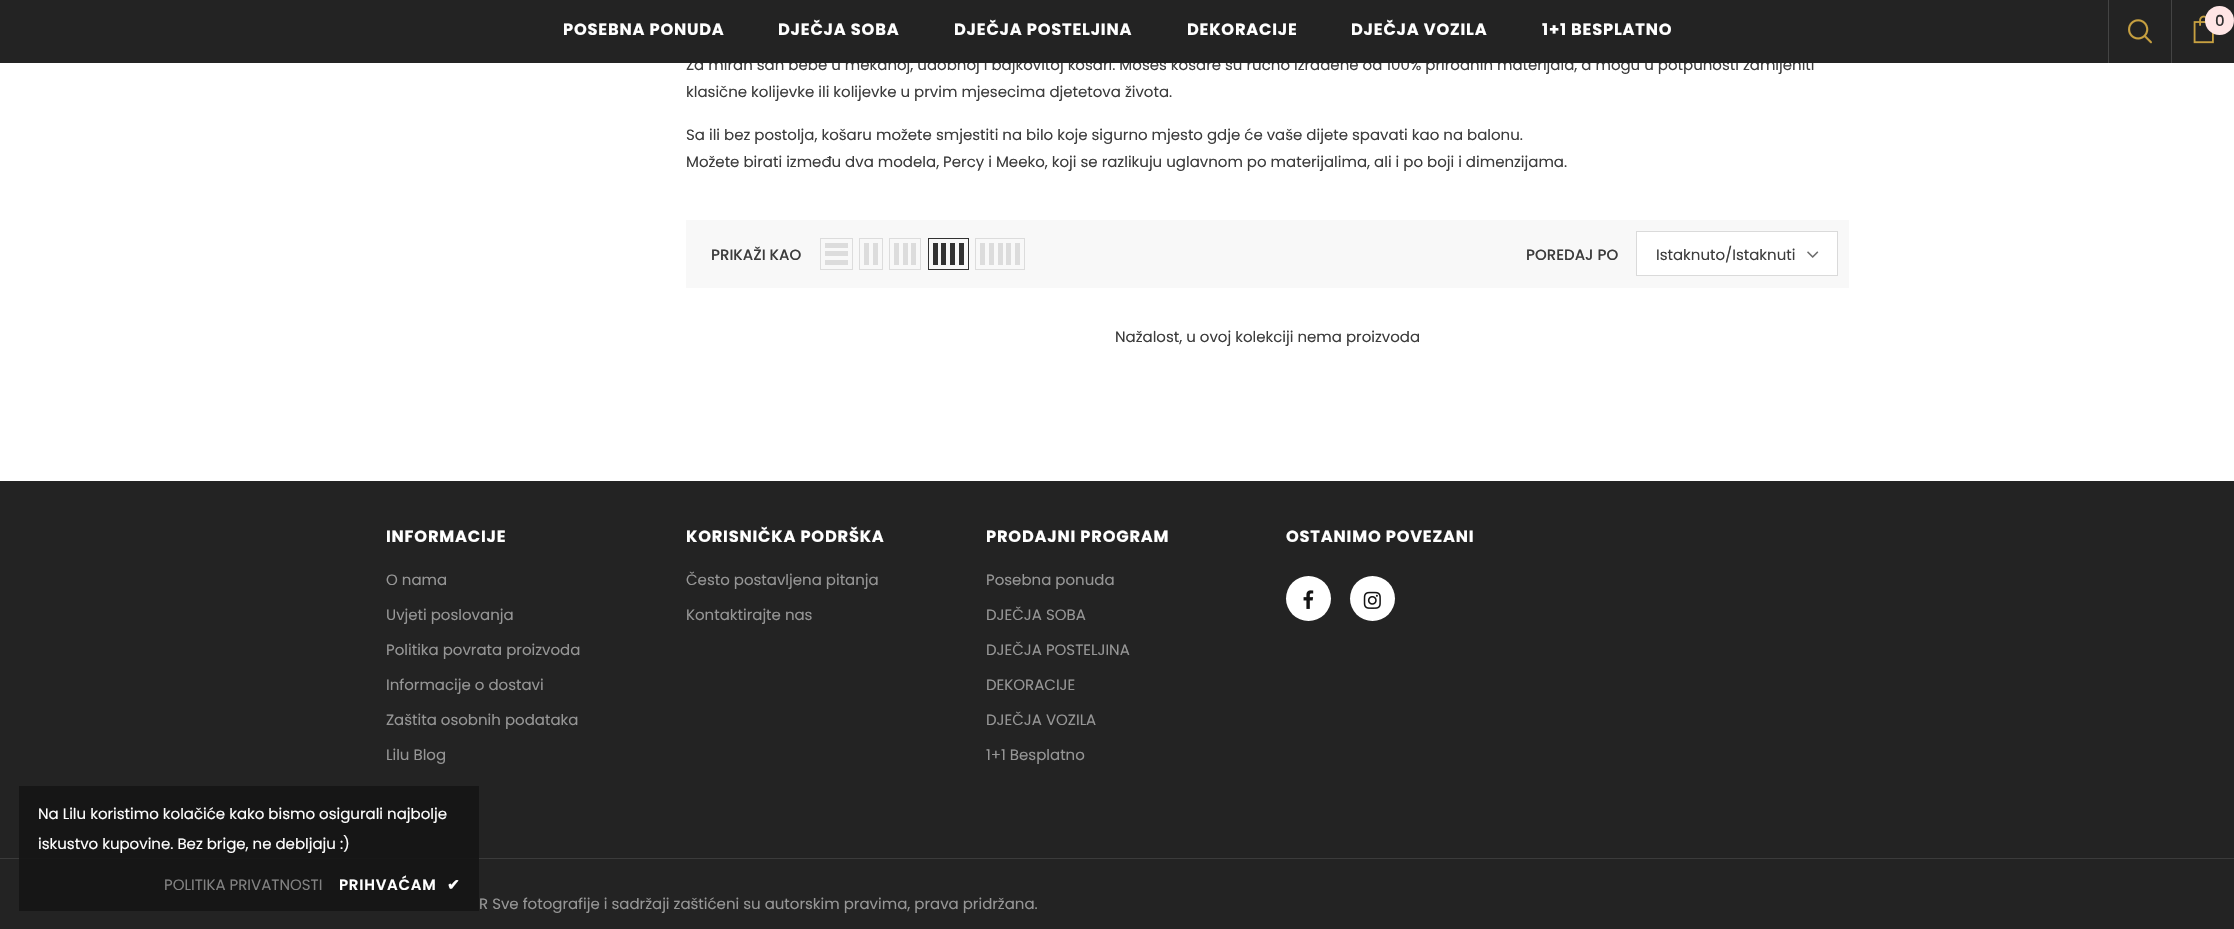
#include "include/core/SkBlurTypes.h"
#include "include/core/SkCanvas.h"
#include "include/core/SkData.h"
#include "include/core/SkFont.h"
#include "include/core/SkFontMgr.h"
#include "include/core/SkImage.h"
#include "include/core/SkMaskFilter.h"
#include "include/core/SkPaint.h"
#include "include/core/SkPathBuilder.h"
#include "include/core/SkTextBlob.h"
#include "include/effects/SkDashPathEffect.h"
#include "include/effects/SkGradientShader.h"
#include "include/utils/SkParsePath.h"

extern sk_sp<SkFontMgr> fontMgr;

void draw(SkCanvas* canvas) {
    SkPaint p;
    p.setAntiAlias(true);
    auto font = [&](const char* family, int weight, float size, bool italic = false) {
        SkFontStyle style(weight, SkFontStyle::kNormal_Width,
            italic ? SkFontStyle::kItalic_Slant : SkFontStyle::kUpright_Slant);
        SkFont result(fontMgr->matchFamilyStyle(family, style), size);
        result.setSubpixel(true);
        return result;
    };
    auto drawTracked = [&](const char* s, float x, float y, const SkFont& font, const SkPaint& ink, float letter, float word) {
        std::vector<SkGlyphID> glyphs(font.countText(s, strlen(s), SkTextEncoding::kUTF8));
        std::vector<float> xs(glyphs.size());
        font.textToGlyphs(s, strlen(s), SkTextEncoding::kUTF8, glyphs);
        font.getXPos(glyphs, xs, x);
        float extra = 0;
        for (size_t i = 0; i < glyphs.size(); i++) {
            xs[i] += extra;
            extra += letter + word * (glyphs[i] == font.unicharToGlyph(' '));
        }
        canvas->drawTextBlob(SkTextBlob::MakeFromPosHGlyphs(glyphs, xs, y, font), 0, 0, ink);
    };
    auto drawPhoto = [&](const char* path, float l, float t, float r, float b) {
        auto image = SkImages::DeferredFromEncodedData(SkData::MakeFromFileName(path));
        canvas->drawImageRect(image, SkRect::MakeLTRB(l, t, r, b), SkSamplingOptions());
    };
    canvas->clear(0xFFFFFFFF);
    auto font1 = font("Poppins", 400, 15);
    p.setColor(0xFF3C3C3C);
    canvas->drawString("Za miran san bebe u mekanoj, udobnoj i bajkovitoj košari. Moses košare su ručno izrađene od 100% prirodnih materijala, a mogu u potpunosti zamijeniti", 686, 70, font1, p);
    p.setColor(0xFF232323);
    canvas->drawRect(SkRect::MakeLTRB(0, 0, 2234, 63), p);
    auto font2 = font("Poppins", 700, 16.25f);
    p.setColor(0xFFFFFFFF);
    {
        const struct { const char* s; float x, y; } items[] = {
            {"POSEBNA PONUDA", 563, 35},
            {"DJEČJA SOBA", 778, 35},
            {"DJEČJA POSTELJINA", 954, 35},
            {"DEKORACIJE", 1187, 35},
            {"DJEČJA VOZILA", 1351, 35},
            {"1+1 BESPLATNO", 1542, 35},
        };
        for (auto [s, x, y] : items) {
            drawTracked(s, x, y, font2, p, 0.8f, 0);
        }
    }
    p.setColor(0xFF444444);
    canvas->drawRect(SkRect::MakeLTRB(2108, 0, 2109, 63), p);
    drawPhoto("media/1.png", 2128, 19, 2152, 44);
    canvas->drawRect(SkRect::MakeLTRB(2171, 0, 2172, 63), p);
    drawPhoto("media/2.png", 2193, 15, 2214, 44);
    p.setColor(0xFFFFE5E5);
    canvas->drawCircle(2219.5f, 20.5f, 14.5f, p);
    auto font3 = font("Poppins", 500, 15);
    p.setColor(0xFF323232);
    canvas->drawString("0", 2215, 26, font3, p);
    p.setColor(0xFF3C3C3C);
    {
        const struct { const char* s; float x, y; } items[] = {
            {"klasične kolijevke ili kolijevke u prvim mjesecima djetetova života.", 686, 97},
            {"Sa ili bez postolja, košaru možete smjestiti na bilo koje sigurno mjesto gdje će vaše dijete spavati kao na balonu.", 686, 140},
            {"Možete birati između dva modela, Percy i Meeko, koji se razlikuju uglavnom po materijalima, ali i po boji i dimenzijama.", 686, 167},
        };
        for (auto [s, x, y] : items) {
            canvas->drawString(s, x, y, font1, p);
        }
    }
    p.setColor(0xFFF8F8F8);
    canvas->drawRect(SkRect::MakeLTRB(686, 220, 1849, 288), p);
    p.setColor(0xFF3C3C3C);
    canvas->drawString("PRIKAŽI KAO", 711, 260, font3, p);
    p.setStyle(SkPaint::kStroke_Style);
    p.setStrokeWidth(1);
    p.setColor(0xFFDCDCDC);
    canvas->drawRect(SkRect::MakeLTRB(820.5f, 238.5f, 852.5f, 269.5f), p);
    p.setStyle(SkPaint::kFill_Style);
    {
        const struct { float l, t, r, b; SkColor color; } items[] = {
            {825, 260, 848, 265, 0xFFDCDCDC},
            {825, 251, 848, 256, 0xFFDCDCDC},
            {825, 243, 848, 248, 0xFFDCDCDC},
        };
        for (auto [l, t, r, b, color] : items) {
            p.setColor(color);
            canvas->drawRect(SkRect::MakeLTRB(l, t, r, b), p);
        }
    }
    p.setStyle(SkPaint::kStroke_Style);
    canvas->drawRect(SkRect::MakeLTRB(859.5f, 238.5f, 882.5f, 269.5f), p);
    p.setStyle(SkPaint::kFill_Style);
    canvas->drawRect(SkRect::MakeLTRB(873, 243, 878, 265), p);
    canvas->drawRect(SkRect::MakeLTRB(864, 243, 869, 265), p);
    p.setStyle(SkPaint::kStroke_Style);
    canvas->drawRect(SkRect::MakeLTRB(889.5f, 238.5f, 920.5f, 269.5f), p);
    p.setStyle(SkPaint::kFill_Style);
    {
        const struct { float l, t, r, b; SkColor color; } items[] = {
            {911, 243, 916, 265, 0xFFDCDCDC},
            {903, 243, 908, 265, 0xFFDCDCDC},
            {894, 243, 899, 265, 0xFFDCDCDC},
        };
        for (auto [l, t, r, b, color] : items) {
            p.setColor(color);
            canvas->drawRect(SkRect::MakeLTRB(l, t, r, b), p);
        }
    }
    p.setStyle(SkPaint::kStroke_Style);
    p.setColor(0xFF323232);
    canvas->drawRect(SkRect::MakeLTRB(928.5f, 238.5f, 968.5f, 269.5f), p);
    p.setStyle(SkPaint::kFill_Style);
    {
        const struct { float l, t, r, b; SkColor color; } items[] = {
            {959, 243, 964, 265, 0xFF323232},
            {950, 243, 955, 265, 0xFF323232},
            {941, 243, 946, 265, 0xFF323232},
            {933, 243, 938, 265, 0xFF323232},
        };
        for (auto [l, t, r, b, color] : items) {
            p.setColor(color);
            canvas->drawRect(SkRect::MakeLTRB(l, t, r, b), p);
        }
    }
    p.setStyle(SkPaint::kStroke_Style);
    p.setColor(0xFFDCDCDC);
    canvas->drawRect(SkRect::MakeLTRB(975.5f, 238.5f, 1024.5f, 269.5f), p);
    p.setStyle(SkPaint::kFill_Style);
    {
        const struct { float l, t, r, b; SkColor color; } items[] = {
            {1015, 243, 1020, 265, 0xFFDCDCDC},
            {1006, 243, 1011, 265, 0xFFDCDCDC},
            {998, 243, 1003, 265, 0xFFDCDCDC},
            {989, 243, 994, 265, 0xFFDCDCDC},
            {980, 243, 985, 265, 0xFFDCDCDC},
        };
        for (auto [l, t, r, b, color] : items) {
            p.setColor(color);
            canvas->drawRect(SkRect::MakeLTRB(l, t, r, b), p);
        }
    }
    p.setColor(0xFF3C3C3C);
    canvas->drawString("POREDAJ PO", 1526, 260, font3, p);
    p.setColor(0xFFFFFFFF);
    canvas->drawRect(SkRect::MakeLTRB(1636.5f, 231.5f, 1837.5f, 275.5f), p);
    p.setStyle(SkPaint::kStroke_Style);
    p.setColor(0xFFDADADA);
    canvas->drawRect(SkRect::MakeLTRB(1636.5f, 231.5f, 1837.5f, 275.5f), p);
    p.setStyle(SkPaint::kFill_Style);
    p.setColor(0xFF3C3C3C);
    canvas->drawString("Istaknuto/Istaknuti", 1656, 260, font1, p);
    drawPhoto("media/3.png", 1807, 251, 1819, 258);
    canvas->drawString("Nažalost, u ovoj kolekciji nema proizvoda", 1115, 342, font1, p);
    {
        const struct { float l, t, r, b; SkColor color; } items[] = {
            {0, 481, 2234, 929, 0xFF232323},
            {0, 858, 2234, 859, 0xFF3B3B3B},
            {19, 786, 479, 911, 0xE6141414},
        };
        for (auto [l, t, r, b, color] : items) {
            p.setColor(color);
            canvas->drawRect(SkRect::MakeLTRB(l, t, r, b), p);
        }
    }
    p.setColor(0xFFFFFFFF);
    canvas->drawString("Na Lilu koristimo kolačiće kako bismo osigurali najbolje", 38, 819, font1, p);
    canvas->drawString("iskustvo kupovine. Bez brige, ne debljaju :)", 38, 849, font1, p);
    p.setColor(0xFF818181);
    canvas->drawString("POLITIKA PRIVATNOSTI", 164, 890, font1, p);
    auto font4 = font("Poppins", 600, 15);
    p.setColor(0xFFFFFFFF);
    drawTracked("PRIHVAĆAM", 339, 890, font4, p, 0.75f, 0);
    auto font5 = font("DejaVu Sans", 700, 15);
    drawTracked("✔", 447, 890, font5, p, 0.75f, 0);
    drawTracked("INFORMACIJE", 386, 542, font2, p, 0.8f, 0);
    p.setColor(0xFF969696);
    {
        const struct { const char* s; float x, y; } items[] = {
            {"O nama", 386, 585},
            {"Uvjeti poslovanja", 386, 620},
            {"Politika povrata proizvoda", 386, 655},
            {"Informacije o dostavi", 386, 690},
            {"Zaštita osobnih podataka", 386, 725},
            {"Lilu Blog", 386, 760},
        };
        for (auto [s, x, y] : items) {
            canvas->drawString(s, x, y, font1, p);
        }
    }
    p.setColor(0xFFFFFFFF);
    drawTracked("KORISNIČKA PODRŠKA", 686, 542, font2, p, 0.8f, 0);
    p.setColor(0xFF969696);
    canvas->drawString("Često postavljena pitanja", 686, 585, font1, p);
    canvas->drawString("Kontaktirajte nas", 686, 620, font1, p);
    p.setColor(0xFFFFFFFF);
    drawTracked("PRODAJNI PROGRAM", 986, 542, font2, p, 0.8f, 0);
    p.setColor(0xFF969696);
    {
        const struct { const char* s; float x, y; } items[] = {
            {"Posebna ponuda", 986, 585},
            {"DJEČJA SOBA", 986, 620},
            {"DJEČJA POSTELJINA", 986, 655},
            {"DEKORACIJE", 986, 690},
            {"DJEČJA VOZILA", 986, 725},
            {"1+1 Besplatno", 986, 760},
        };
        for (auto [s, x, y] : items) {
            canvas->drawString(s, x, y, font1, p);
        }
    }
    p.setColor(0xFFFFFFFF);
    drawTracked("OSTANIMO POVEZANI", 1286, 542, font2, p, 0.8f, 0);
    canvas->drawCircle(1308.5f, 598.5f, 22.5f, p);
    drawPhoto("media/4.png", 1303, 590, 1314, 609);
    canvas->drawCircle(1372.5f, 598.5f, 22.5f, p);
    drawPhoto("media/5.png", 1363, 591, 1381, 609);
    p.setColor(0xFF969696);
    canvas->drawString("R Sve fotografije i sadržaji zaštićeni su autorskim pravima, prava pridržana.", 479, 909, font1, p);
}
